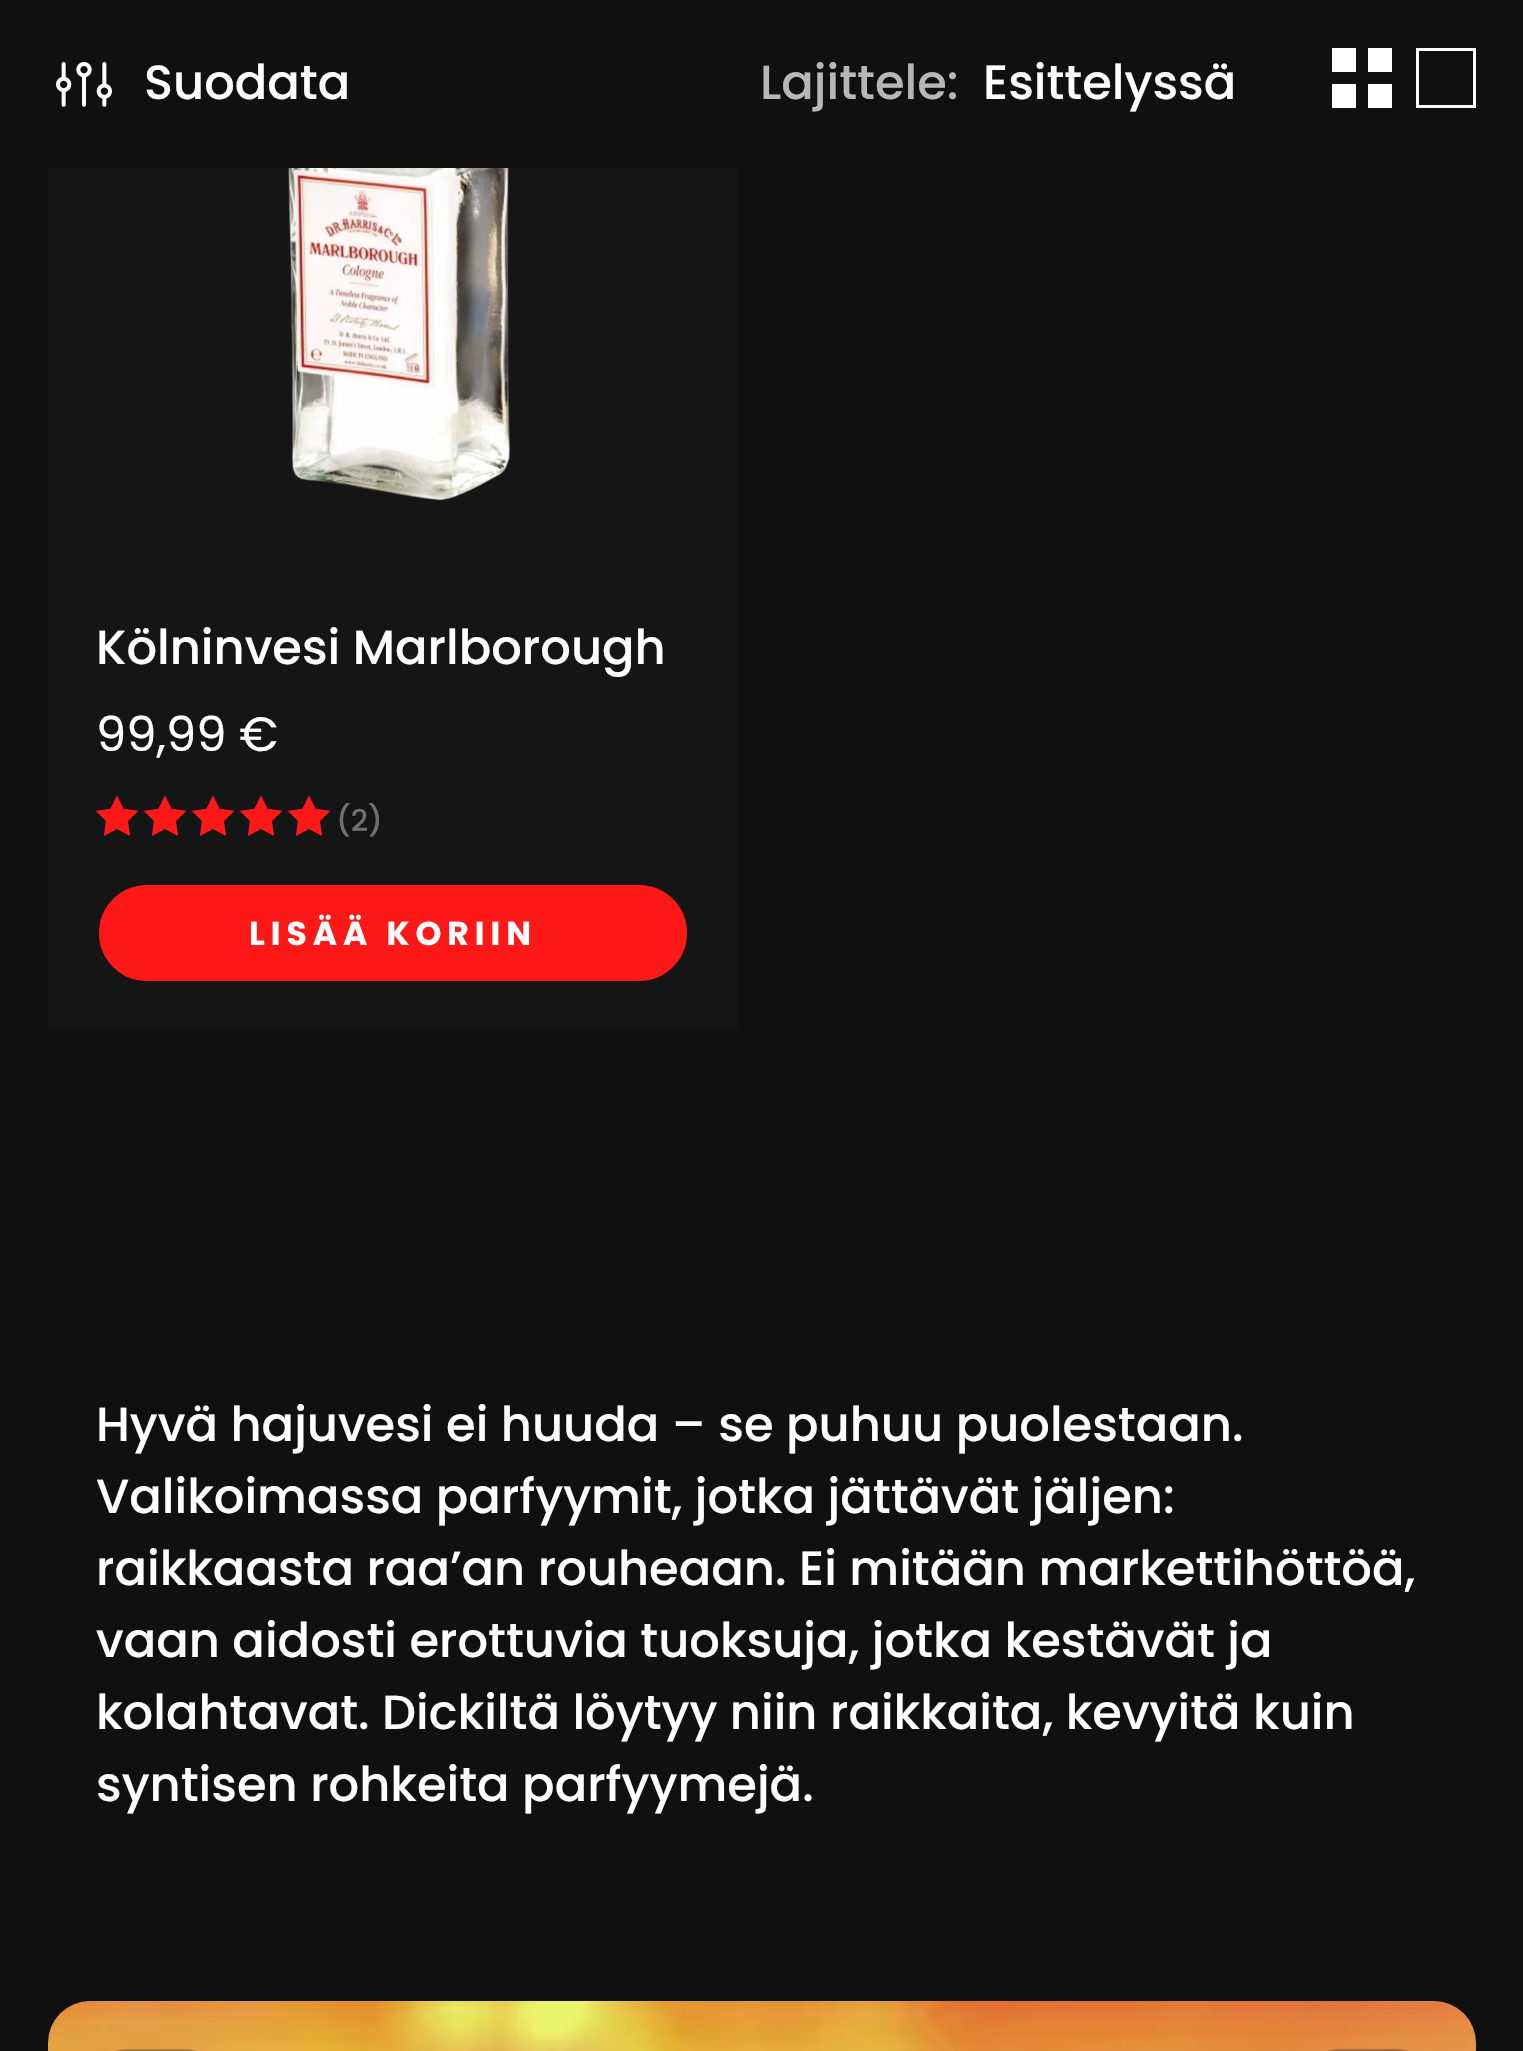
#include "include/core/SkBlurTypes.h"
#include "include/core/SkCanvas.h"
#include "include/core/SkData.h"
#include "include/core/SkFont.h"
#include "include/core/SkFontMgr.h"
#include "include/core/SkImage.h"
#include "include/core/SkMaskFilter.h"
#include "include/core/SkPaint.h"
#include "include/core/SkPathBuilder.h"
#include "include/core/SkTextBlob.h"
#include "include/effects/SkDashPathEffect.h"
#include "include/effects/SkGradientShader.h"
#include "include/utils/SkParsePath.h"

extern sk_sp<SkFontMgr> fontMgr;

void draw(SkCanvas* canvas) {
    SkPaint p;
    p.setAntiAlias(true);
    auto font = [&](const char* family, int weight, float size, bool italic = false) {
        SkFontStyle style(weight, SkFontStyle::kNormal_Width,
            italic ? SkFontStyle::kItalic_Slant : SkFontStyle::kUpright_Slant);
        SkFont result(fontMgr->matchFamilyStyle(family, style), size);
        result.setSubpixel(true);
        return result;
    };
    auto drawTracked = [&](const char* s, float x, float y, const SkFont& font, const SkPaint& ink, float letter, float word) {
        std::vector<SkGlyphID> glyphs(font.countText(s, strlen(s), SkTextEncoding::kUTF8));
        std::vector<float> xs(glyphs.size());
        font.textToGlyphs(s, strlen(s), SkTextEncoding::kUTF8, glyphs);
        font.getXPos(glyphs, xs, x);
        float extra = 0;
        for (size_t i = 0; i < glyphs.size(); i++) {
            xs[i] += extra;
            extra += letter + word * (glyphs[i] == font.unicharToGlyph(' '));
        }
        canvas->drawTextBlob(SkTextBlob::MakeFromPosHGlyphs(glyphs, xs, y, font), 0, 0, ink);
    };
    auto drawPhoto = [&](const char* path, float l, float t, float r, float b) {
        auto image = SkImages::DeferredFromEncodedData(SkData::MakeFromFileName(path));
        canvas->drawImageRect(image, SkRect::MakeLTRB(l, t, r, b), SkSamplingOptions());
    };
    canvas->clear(0xFF101010);
    drawPhoto("media/1.png", 56, 62, 112, 107);
    auto font1 = font("Poppins", 500, 48);
    p.setColor(0xFFFFFFFF);
    canvas->drawString("Suodata", 144, 99, font1, p);
    p.setColor(0xFFB7B7B7);
    canvas->drawString("Lajittele:", 760, 99, font1, p);
    p.setColor(0xFFFFFFFF);
    canvas->drawString("Esittelyssä", 983, 99, font1, p);
    {
        const struct { float l, t, r, b; SkColor color; } items[] = {
            {1368, 84, 1392, 108, 0xFFFFFFFF},
            {1368, 48, 1392, 72, 0xFFFFFFFF},
            {1332, 84, 1356, 108, 0xFFFFFFFF},
            {1332, 48, 1356, 72, 0xFFFFFFFF},
        };
        for (auto [l, t, r, b, color] : items) {
            p.setColor(color);
            canvas->drawRect(SkRect::MakeLTRB(l, t, r, b), p);
        }
    }
    p.setStyle(SkPaint::kStroke_Style);
    p.setStrokeWidth(3);
    canvas->drawRect(SkRect::MakeLTRB(1417.5f, 49.5f, 1474.5f, 106.5f), p);
    p.setStyle(SkPaint::kFill_Style);
    p.setColor(0xFF151515);
    canvas->drawRect(SkRect::MakeLTRB(48, 168, 738, 1029), p);
    drawPhoto("media/2.png", 288, 168, 511, 501);
    p.setColor(0xFFFFFFFF);
    canvas->drawString("Kölninvesi Marlborough", 96, 664, font1, p);
    auto font2 = font("Poppins", 400, 48);
    canvas->drawString("99,99 €", 96, 751, font2, p);
    drawPhoto("media/3.png", 96, 795, 138, 836);
    drawPhoto("media/3.png", 144, 795, 186, 836);
    drawPhoto("media/3.png", 192, 795, 234, 836);
    drawPhoto("media/3.png", 240, 795, 282, 836);
    drawPhoto("media/3.png", 288, 795, 330, 836);
    p.setColor(0xFFFF1818);
    canvas->drawPath(SkPathBuilder().moveTo(138, 811).lineTo(123, 809).lineTo(117, 796).lineTo(111, 809).lineTo(96, 811).lineTo(106, 821).lineTo(104, 836).lineTo(117, 829).lineTo(130, 836).lineTo(128, 821).close().detach(), p);
    canvas->drawPath(SkPathBuilder().moveTo(186, 811).lineTo(171, 809).lineTo(165, 796).lineTo(159, 809).lineTo(144, 811).lineTo(154, 821).lineTo(152, 836).lineTo(165, 829).lineTo(178, 836).lineTo(176, 821).close().detach(), p);
    canvas->drawPath(SkPathBuilder().moveTo(234, 811).lineTo(219, 809).lineTo(213, 796).lineTo(207, 809).lineTo(192, 811).lineTo(202, 821).lineTo(200, 836).lineTo(213, 829).lineTo(226, 836).lineTo(224, 821).close().detach(), p);
    canvas->drawPath(SkPathBuilder().moveTo(282, 811).lineTo(267, 809).lineTo(261, 796).lineTo(255, 809).lineTo(240, 811).lineTo(250, 821).lineTo(248, 836).lineTo(261, 829).lineTo(274, 836).lineTo(272, 821).close().detach(), p);
    canvas->drawPath(SkPathBuilder().moveTo(330, 811).lineTo(315, 809).lineTo(309, 796).lineTo(303, 809).lineTo(288, 811).lineTo(298, 821).lineTo(296, 836).lineTo(309, 829).lineTo(322, 836).lineTo(320, 821).close().detach(), p);
    auto font3 = font("Poppins", 500, 30);
    p.setColor(0xFF707070);
    canvas->drawString("(2)", 336, 831, font3, p);
    p.setColor(0xFFFF1818);
    canvas->drawRoundRect(SkRect::MakeLTRB(100.5f, 886.5f, 685.5f, 979.5f), 46.5f, 46.5f, p);
    p.setStyle(SkPaint::kStroke_Style);
    canvas->drawRoundRect(SkRect::MakeLTRB(100.5f, 886.5f, 685.5f, 979.5f), 46.5f, 46.5f, p);
    auto font4 = font("Poppins", 700, 33);
    p.setStyle(SkPaint::kFill_Style);
    p.setColor(0xFFFFFFFF);
    drawTracked("LISÄÄ KORIIN", 249, 945, font4, p, 6, 0);
    {
        const struct { const char* s; float x, y; } items[] = {
            {"Hyvä hajuvesi ei huuda – se puhuu puolestaan.", 96, 1441},
            {"Valikoimassa parfyymit, jotka jättävät jäljen:", 96, 1513},
            {"raikkaasta raa’an rouheaan. Ei mitään markettihöttöä,", 96, 1585},
            {"vaan aidosti erottuvia tuoksuja, jotka kestävät ja", 96, 1657},
            {"kolahtavat. Dickiltä löytyy niin raikkaita, kevyitä kuin", 96, 1729},
            {"syntisen rohkeita parfyymejä.", 96, 1801},
        };
        for (auto [s, x, y] : items) {
            canvas->drawString(s, x, y, font1, p);
        }
    }
    drawPhoto("media/4.png", 48, 2001, 1476, 2051);
    p.setColor(0xFFAD7832);
    canvas->drawRoundRect(SkRect::MakeLTRB(96, 2049, 216, 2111), 60, 60, p);
    p.setColor(0xFFAB6B34);
    canvas->drawRoundRect(SkRect::MakeLTRB(1308, 2049, 1428, 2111), 60, 60, p);
}
